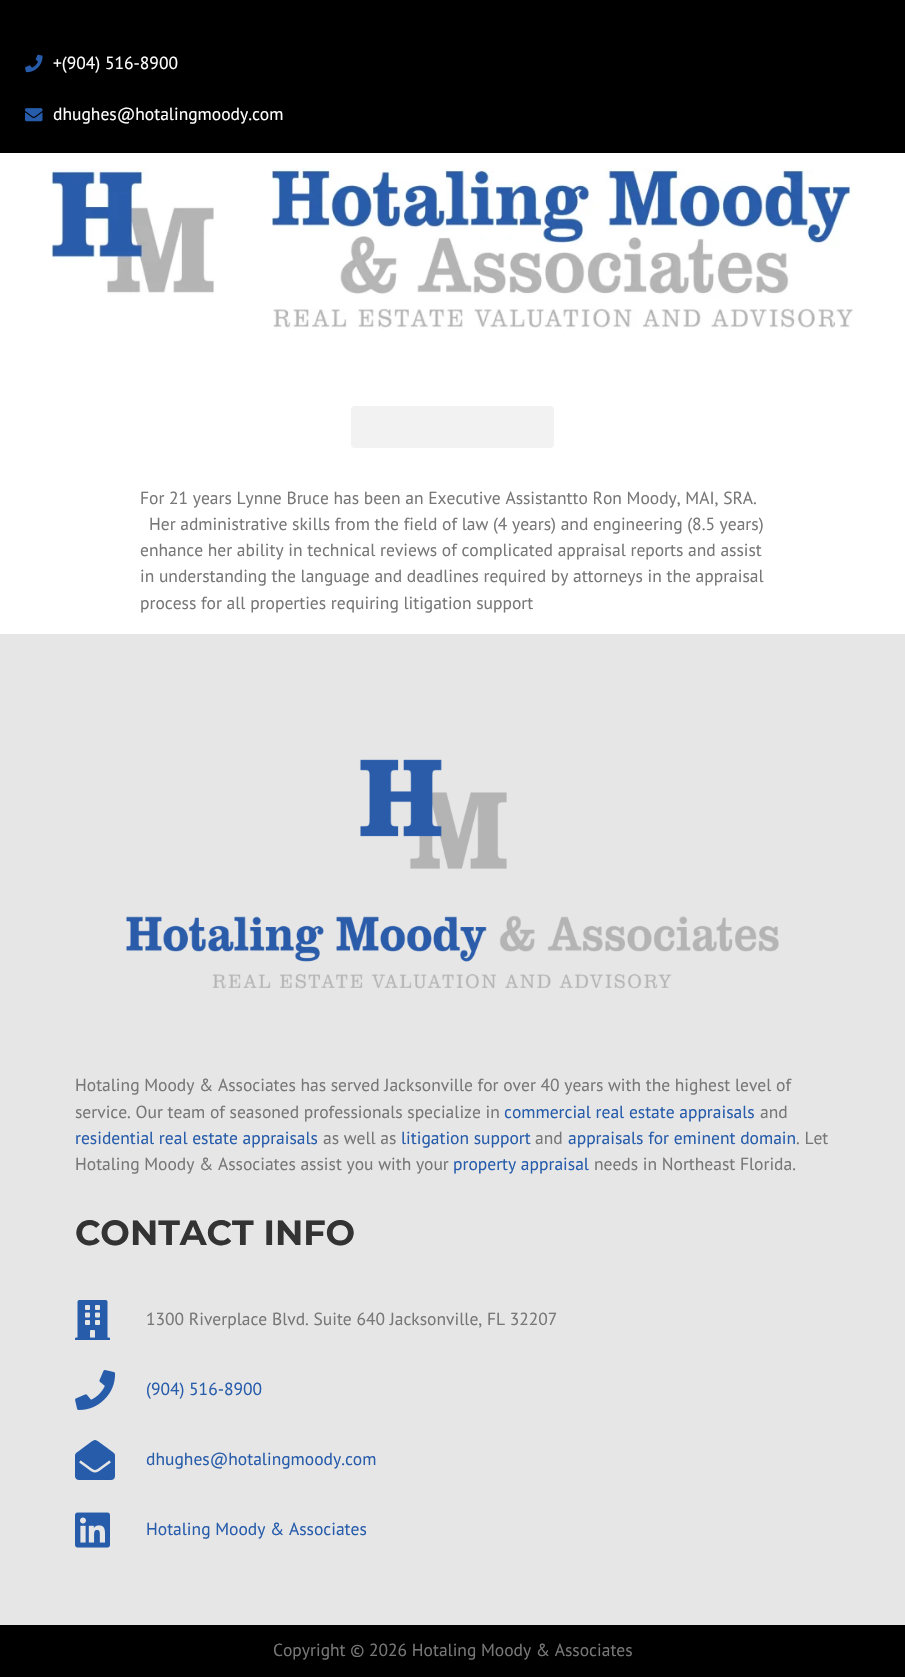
#include "include/core/SkBlurTypes.h"
#include "include/core/SkCanvas.h"
#include "include/core/SkData.h"
#include "include/core/SkFont.h"
#include "include/core/SkFontMgr.h"
#include "include/core/SkImage.h"
#include "include/core/SkMaskFilter.h"
#include "include/core/SkPaint.h"
#include "include/core/SkPathBuilder.h"
#include "include/core/SkTextBlob.h"
#include "include/effects/SkDashPathEffect.h"
#include "include/effects/SkGradientShader.h"
#include "include/utils/SkParsePath.h"

extern sk_sp<SkFontMgr> fontMgr;

void draw(SkCanvas* canvas) {
    SkPaint p;
    p.setAntiAlias(true);
    auto font = [&](const char* family, int weight, float size, bool italic = false) {
        SkFontStyle style(weight, SkFontStyle::kNormal_Width,
            italic ? SkFontStyle::kItalic_Slant : SkFontStyle::kUpright_Slant);
        SkFont result(fontMgr->matchFamilyStyle(family, style), size);
        result.setSubpixel(true);
        return result;
    };
    auto drawPhoto = [&](const char* path, float l, float t, float r, float b) {
        auto image = SkImages::DeferredFromEncodedData(SkData::MakeFromFileName(path));
        canvas->drawImageRect(image, SkRect::MakeLTRB(l, t, r, b), SkSamplingOptions());
    };
    canvas->clear(0xFFFFFFFF);
    p.setColor(0xFF000000);
    canvas->drawRect(SkRect::MakeLTRB(0, 0, 905, 153), p);
    drawPhoto("media/1.png", 25, 54, 43, 73);
    auto font1 = font("PT Sans", 400, 17.5f);
    p.setColor(0xFFFFFFFF);
    canvas->drawString("+(904) 516-8900", 53, 69, font1, p);
    drawPhoto("media/2.png", 25, 108, 43, 122);
    canvas->drawString("dhughes@hotalingmoody.com", 53, 120, font1, p);
    drawPhoto("media/3.png", 51, 168, 853, 329);
    p.setColor(0xFFF2F2F2);
    canvas->drawRoundRect(SkRect::MakeLTRB(351, 406, 554, 448), 4, 4, p);
    p.setColor(0xFF777777);
    {
        const struct { const char* s; float x, y; } items[] = {
            {"For 21 years Lynne Bruce has been an Executive Assistantto Ron Moody, MAI, SRA.", 140, 504},
            {"Her administrative skills from the field of law (4 years) and engineering (8.5 years)", 149, 530},
            {"enhance her ability in technical reviews of complicated appraisal reports and assist", 140, 556},
            {"in understanding the language and deadlines required by attorneys in the appraisal", 140, 582},
            {"process for all properties requiring litigation support", 140, 609},
        };
        for (auto [s, x, y] : items) {
            canvas->drawString(s, x, y, font1, p);
        }
    }
    p.setColor(0xFFE6E6E6);
    canvas->drawRect(SkRect::MakeLTRB(0, 634, 905, 1625), p);
    drawPhoto("media/4.png", 126, 759, 779, 989);
    p.setColor(0xFF777777);
    canvas->drawString("Hotaling Moody & Associates has served Jacksonville for over 40 years with the highest level of", 75, 1091, font1, p);
    canvas->drawString("service. Our team of seasoned professionals specialize in", 75, 1118, font1, p);
    p.setColor(0xFF275CAB);
    canvas->drawString("commercial real estate appraisals", 504, 1118, font1, p);
    p.setColor(0xFF777777);
    canvas->drawString("and", 760, 1118, font1, p);
    p.setColor(0xFF275CAB);
    canvas->drawString("residential real estate appraisals", 75, 1144, font1, p);
    p.setColor(0xFF777777);
    canvas->drawString("as well as", 323, 1144, font1, p);
    p.setColor(0xFF275CAB);
    canvas->drawString("litigation support", 401, 1144, font1, p);
    p.setColor(0xFF777777);
    canvas->drawString("and", 535, 1144, font1, p);
    p.setColor(0xFF275CAB);
    canvas->drawString("appraisals for eminent domain", 568, 1144, font1, p);
    p.setColor(0xFF777777);
    canvas->drawString(". Let", 796, 1144, font1, p);
    canvas->drawString("Hotaling Moody & Associates assist you with your", 75, 1170, font1, p);
    p.setColor(0xFF275CAB);
    canvas->drawString("property appraisal", 453, 1170, font1, p);
    p.setColor(0xFF777777);
    canvas->drawString("needs in Northeast Florida.", 594, 1170, font1, p);
    auto font2 = font("Montserrat", 700, 35);
    p.setColor(0xFF333333);
    canvas->drawString("CONTACT INFO", 75, 1245, font2, p);
    drawPhoto("media/5.png", 75, 1300, 110, 1340);
    p.setColor(0xFF777777);
    canvas->drawString("1300 Riverplace Blvd. Suite 640 Jacksonville, FL 32207", 146, 1325, font1, p);
    drawPhoto("media/6.png", 75, 1370, 116, 1410);
    p.setColor(0xFF275CAB);
    canvas->drawString("(904) 516-8900", 146, 1395, font1, p);
    drawPhoto("media/7.png", 75, 1440, 115, 1480);
    canvas->drawString("dhughes@hotalingmoody.com", 146, 1465, font1, p);
    drawPhoto("media/8.png", 75, 1512, 110, 1548);
    canvas->drawString("Hotaling Moody & Associates", 146, 1535, font1, p);
    p.setColor(0xFF000000);
    canvas->drawRect(SkRect::MakeLTRB(0, 1625, 905, 1677), p);
    p.setColor(0xFF777777);
    canvas->drawString("Copyright © 2026 Hotaling Moody & Associates", 273, 1656, font1, p);
}
